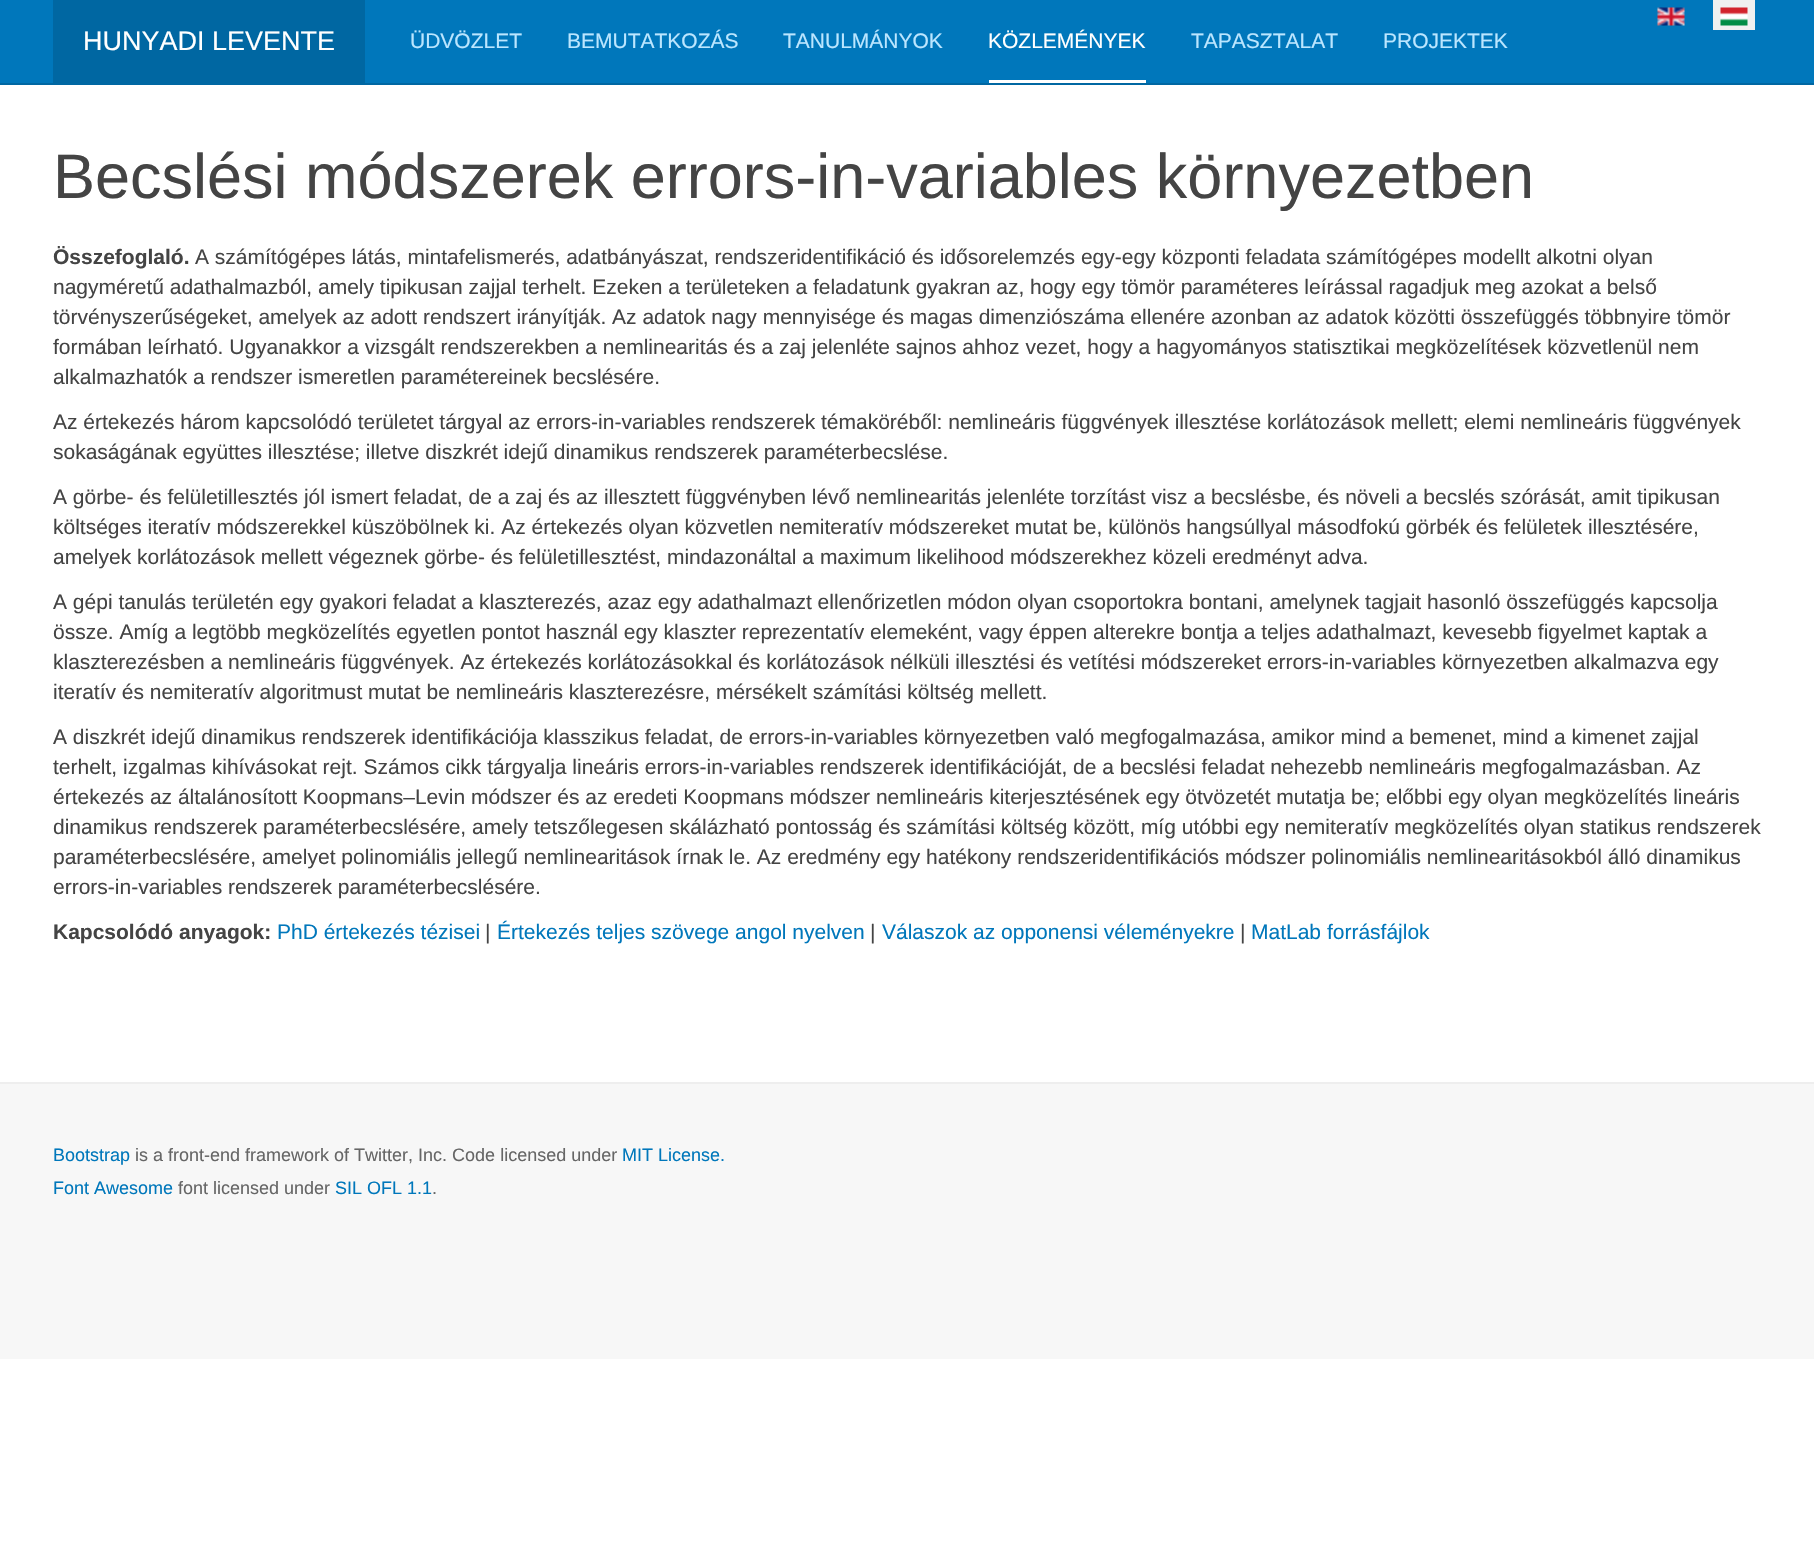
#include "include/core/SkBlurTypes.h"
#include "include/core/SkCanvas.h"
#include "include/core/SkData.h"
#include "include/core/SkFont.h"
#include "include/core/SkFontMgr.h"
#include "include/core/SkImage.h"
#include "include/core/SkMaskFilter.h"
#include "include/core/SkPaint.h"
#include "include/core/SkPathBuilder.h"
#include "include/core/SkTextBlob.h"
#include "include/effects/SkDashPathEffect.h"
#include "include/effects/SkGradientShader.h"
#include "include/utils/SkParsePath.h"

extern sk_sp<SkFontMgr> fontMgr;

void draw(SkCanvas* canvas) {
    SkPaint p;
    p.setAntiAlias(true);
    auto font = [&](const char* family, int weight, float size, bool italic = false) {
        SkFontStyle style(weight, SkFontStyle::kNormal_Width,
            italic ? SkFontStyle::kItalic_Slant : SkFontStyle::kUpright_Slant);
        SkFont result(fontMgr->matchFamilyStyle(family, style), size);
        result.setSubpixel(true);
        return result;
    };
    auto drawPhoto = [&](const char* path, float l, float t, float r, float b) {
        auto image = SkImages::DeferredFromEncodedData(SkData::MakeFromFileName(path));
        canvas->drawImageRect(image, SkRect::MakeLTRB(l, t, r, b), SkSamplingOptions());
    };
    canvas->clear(0xFFFFFFFF);
    p.setColor(0xFF0077BB);
    canvas->drawRect(SkRect::MakeLTRB(0, 0, 1814, 83), p);
    p.setColor(0xFF0067A2);
    canvas->drawRect(SkRect::MakeLTRB(0, 83, 1814, 85), p);
    drawPhoto("media/1.png", 1657, 7, 1685, 26);
    p.setColor(0xFFF0F0F0);
    canvas->drawRect(SkRect::MakeLTRB(1713, 0, 1755, 30), p);
    drawPhoto("media/2.png", 1720, 7, 1748, 26);
    p.setColor(0xFF0067A2);
    canvas->drawRect(SkRect::MakeLTRB(53, 0, 365, 83), p);
    auto font1 = font("Liberation Sans", 400, 27);
    p.setColor(0xFFFFFFFF);
    canvas->drawString("HUNYADI LEVENTE", 83, 50, font1, p);
    auto font2 = font("Liberation Sans", 400, 21);
    p.setColor(0xFFBBE6FF);
    {
        const struct { const char* s; float x, y; } items[] = {
            {"ÜDVÖZLET", 410, 48},
            {"BEMUTATKOZÁS", 567, 48},
            {"TANULMÁNYOK", 783, 48},
        };
        for (auto [s, x, y] : items) {
            canvas->drawString(s, x, y, font2, p);
        }
    }
    p.setColor(0xFFFFFFFF);
    canvas->drawRect(SkRect::MakeLTRB(989, 80, 1146, 83), p);
    canvas->drawString("KÖZLEMÉNYEK", 988, 48, font2, p);
    p.setColor(0xFFBBE6FF);
    canvas->drawString("TAPASZTALAT", 1191, 48, font2, p);
    canvas->drawString("PROJEKTEK", 1383, 48, font2, p);
    auto font3 = font("Liberation Sans", 400, 63);
    p.setColor(0xFF444444);
    canvas->drawString("Becslési módszerek errors-in-variables környezetben", 53, 198, font3, p);
    auto font4 = font("Liberation Sans", 700, 21);
    canvas->drawString("Összefoglaló.", 53, 264, font4, p);
    {
        const struct { const char* s; float x, y; } items[] = {
            {"A számítógépes látás, mintafelismerés, adatbányászat, rendszeridentifikáció és idősorelemzés egy-egy központi feladata számítógépes modellt alkotni olyan", 195, 264},
            {"nagyméretű adathalmazból, amely tipikusan zajjal terhelt. Ezeken a területeken a feladatunk gyakran az, hogy egy tömör paraméteres leírással ragadjuk meg azokat a belső", 53, 294},
            {"törvényszerűségeket, amelyek az adott rendszert irányítják. Az adatok nagy mennyisége és magas dimenziószáma ellenére azonban az adatok közötti összefüggés többnyire tömör", 53, 324},
            {"formában leírható. Ugyanakkor a vizsgált rendszerekben a nemlinearitás és a zaj jelenléte sajnos ahhoz vezet, hogy a hagyományos statisztikai megközelítések közvetlenül nem", 53, 354},
            {"alkalmazhatók a rendszer ismeretlen paramétereinek becslésére.", 53, 384},
            {"Az értekezés három kapcsolódó területet tárgyal az errors-in-variables rendszerek témaköréből: nemlineáris függvények illesztése korlátozások mellett; elemi nemlineáris függvények", 53, 429},
            {"sokaságának együttes illesztése; illetve diszkrét idejű dinamikus rendszerek paraméterbecslése.", 53, 459},
            {"A görbe- és felületillesztés jól ismert feladat, de a zaj és az illesztett függvényben lévő nemlinearitás jelenléte torzítást visz a becslésbe, és növeli a becslés szórását, amit tipikusan", 53, 504},
            {"költséges iteratív módszerekkel küszöbölnek ki. Az értekezés olyan közvetlen nemiteratív módszereket mutat be, különös hangsúllyal másodfokú görbék és felületek illesztésére,", 53, 534},
            {"amelyek korlátozások mellett végeznek görbe- és felületillesztést, mindazonáltal a maximum likelihood módszerekhez közeli eredményt adva.", 53, 564},
            {"A gépi tanulás területén egy gyakori feladat a klaszterezés, azaz egy adathalmazt ellenőrizetlen módon olyan csoportokra bontani, amelynek tagjait hasonló összefüggés kapcsolja", 53, 609},
            {"össze. Amíg a legtöbb megközelítés egyetlen pontot használ egy klaszter reprezentatív elemeként, vagy éppen alterekre bontja a teljes adathalmazt, kevesebb figyelmet kaptak a", 53, 639},
            {"klaszterezésben a nemlineáris függvények. Az értekezés korlátozásokkal és korlátozások nélküli illesztési és vetítési módszereket errors-in-variables környezetben alkalmazva egy", 53, 669},
            {"iteratív és nemiteratív algoritmust mutat be nemlineáris klaszterezésre, mérsékelt számítási költség mellett.", 53, 699},
            {"A diszkrét idejű dinamikus rendszerek identifikációja klasszikus feladat, de errors-in-variables környezetben való megfogalmazása, amikor mind a bemenet, mind a kimenet zajjal", 53, 744},
            {"terhelt, izgalmas kihívásokat rejt. Számos cikk tárgyalja lineáris errors-in-variables rendszerek identifikációját, de a becslési feladat nehezebb nemlineáris megfogalmazásban. Az", 53, 774},
            {"értekezés az általánosított Koopmans–Levin módszer és az eredeti Koopmans módszer nemlineáris kiterjesztésének egy ötvözetét mutatja be; előbbi egy olyan megközelítés lineáris", 53, 804},
            {"dinamikus rendszerek paraméterbecslésére, amely tetszőlegesen skálázható pontosság és számítási költség között, míg utóbbi egy nemiteratív megközelítés olyan statikus rendszerek", 53, 834},
            {"paraméterbecslésére, amelyet polinomiális jellegű nemlinearitások írnak le. Az eredmény egy hatékony rendszeridentifikációs módszer polinomiális nemlinearitásokból álló dinamikus", 53, 864},
            {"errors-in-variables rendszerek paraméterbecslésére.", 53, 894},
        };
        for (auto [s, x, y] : items) {
            canvas->drawString(s, x, y, font2, p);
        }
    }
    canvas->drawString("Kapcsolódó anyagok:", 53, 939, font4, p);
    p.setColor(0xFF0077BB);
    canvas->drawString("PhD értekezés tézisei", 277, 939, font2, p);
    p.setColor(0xFF444444);
    canvas->drawString("|", 485, 939, font2, p);
    p.setColor(0xFF0077BB);
    canvas->drawString("Értekezés teljes szövege angol nyelven", 497, 939, font2, p);
    p.setColor(0xFF444444);
    canvas->drawString("|", 870, 939, font2, p);
    p.setColor(0xFF0077BB);
    canvas->drawString("Válaszok az opponensi véleményekre", 882, 939, font2, p);
    p.setColor(0xFF444444);
    canvas->drawString("|", 1240, 939, font2, p);
    p.setColor(0xFF0077BB);
    canvas->drawString("MatLab forrásfájlok", 1251, 939, font2, p);
    p.setColor(0xFFF7F7F7);
    canvas->drawRect(SkRect::MakeLTRB(0, 1084, 1814, 1359), p);
    p.setColor(0xFFEEEEEE);
    canvas->drawRect(SkRect::MakeLTRB(0, 1082, 1814, 1084), p);
    auto font5 = font("Liberation Sans", 400, 18);
    p.setColor(0xFF0077BB);
    canvas->drawString("Bootstrap", 53, 1161, font5, p);
    p.setColor(0xFF666666);
    canvas->drawString("is a front-end framework of Twitter, Inc. Code licensed under", 135, 1161, font5, p);
    p.setColor(0xFF0077BB);
    canvas->drawString("MIT License.", 622, 1161, font5, p);
    canvas->drawString("Font Awesome", 53, 1194, font5, p);
    p.setColor(0xFF666666);
    canvas->drawString("font licensed under", 178, 1194, font5, p);
    p.setColor(0xFF0077BB);
    canvas->drawString("SIL OFL 1.1", 335, 1194, font5, p);
    p.setColor(0xFF666666);
    canvas->drawString(".", 432, 1194, font5, p);
}
